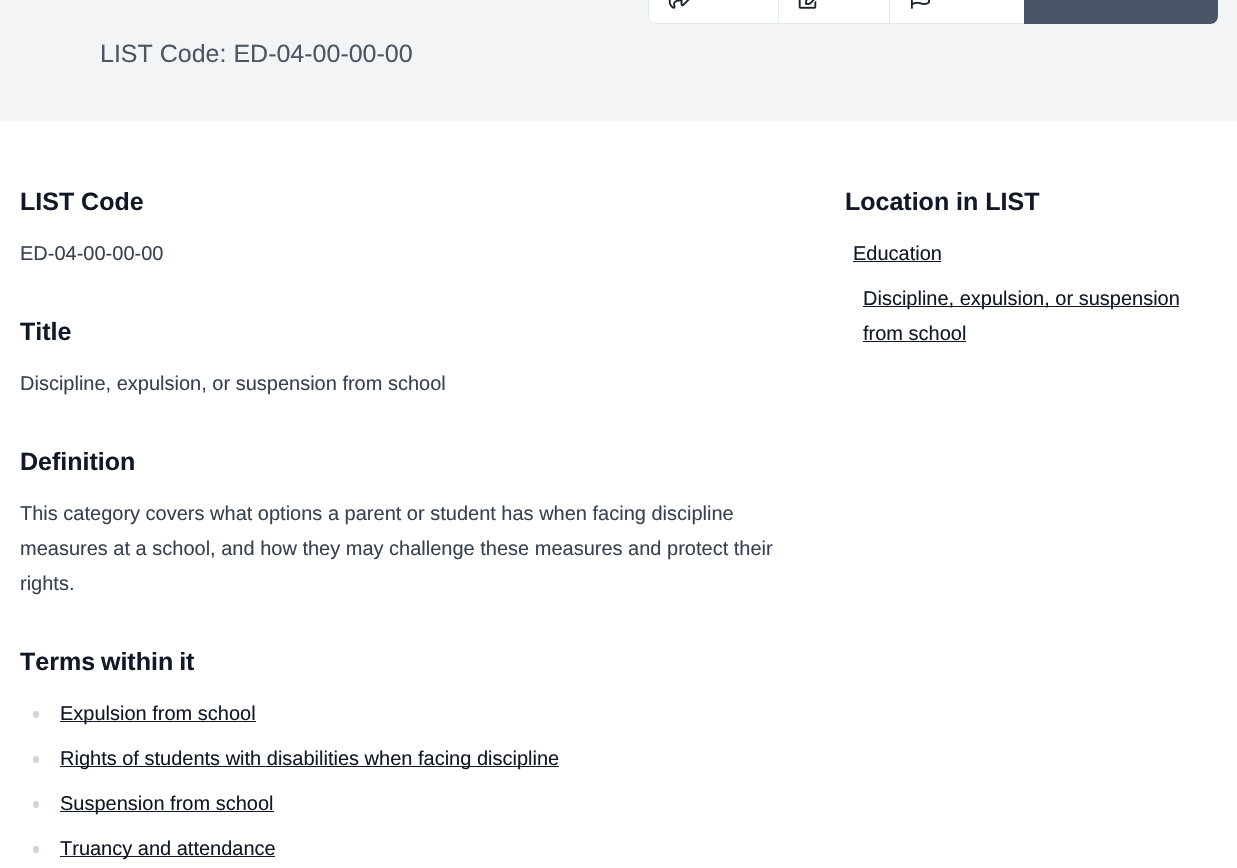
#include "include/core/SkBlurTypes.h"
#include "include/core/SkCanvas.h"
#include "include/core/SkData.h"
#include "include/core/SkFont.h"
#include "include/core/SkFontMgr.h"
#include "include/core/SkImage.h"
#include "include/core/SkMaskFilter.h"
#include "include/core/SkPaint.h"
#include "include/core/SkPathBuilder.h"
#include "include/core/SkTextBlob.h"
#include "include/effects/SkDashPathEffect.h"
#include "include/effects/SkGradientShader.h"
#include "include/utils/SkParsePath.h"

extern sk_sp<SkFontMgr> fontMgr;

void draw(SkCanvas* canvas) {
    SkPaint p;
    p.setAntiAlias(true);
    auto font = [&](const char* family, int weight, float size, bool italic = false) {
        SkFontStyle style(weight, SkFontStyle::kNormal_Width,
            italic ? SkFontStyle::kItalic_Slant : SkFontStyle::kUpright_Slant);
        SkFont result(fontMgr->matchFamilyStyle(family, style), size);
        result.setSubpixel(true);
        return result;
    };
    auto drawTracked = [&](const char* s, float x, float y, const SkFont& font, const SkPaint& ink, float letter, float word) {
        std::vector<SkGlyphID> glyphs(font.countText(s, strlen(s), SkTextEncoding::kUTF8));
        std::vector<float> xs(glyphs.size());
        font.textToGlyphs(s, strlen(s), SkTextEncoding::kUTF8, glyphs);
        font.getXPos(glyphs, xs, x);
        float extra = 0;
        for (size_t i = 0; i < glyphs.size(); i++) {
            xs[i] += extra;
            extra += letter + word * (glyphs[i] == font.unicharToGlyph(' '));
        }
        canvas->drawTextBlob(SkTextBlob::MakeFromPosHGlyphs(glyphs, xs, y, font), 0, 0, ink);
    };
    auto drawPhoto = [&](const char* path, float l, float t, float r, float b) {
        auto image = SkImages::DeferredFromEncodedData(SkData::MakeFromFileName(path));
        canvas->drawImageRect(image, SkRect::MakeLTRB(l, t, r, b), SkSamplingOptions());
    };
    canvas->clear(0xFFFFFFFF);
    p.setColor(0xFFF3F4F6);
    canvas->drawRect(SkRect::MakeLTRB(0, 0, 1237, 121), p);
    p.setColor(0xFFFFFFFF);
    canvas->drawPath(SkPathBuilder().moveTo(656, -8.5f).lineTo(778.5f, -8.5f).lineTo(778.5f, 23.5f).lineTo(656, 23.5f).cubicTo(652, 23.5f, 648.5f, 20, 648.5f, 16).lineTo(648.5f, -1).cubicTo(648.5f, -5, 652, -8.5f, 656, -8.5f).close().detach(), p);
    p.setStyle(SkPaint::kStroke_Style);
    p.setStrokeWidth(1);
    p.setColor(0xFFE2E8F0);
    canvas->drawPath(SkPathBuilder().moveTo(656, -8.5f).lineTo(778.5f, -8.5f).lineTo(778.5f, 23.5f).lineTo(656, 23.5f).cubicTo(652, 23.5f, 648.5f, 20, 648.5f, 16).lineTo(648.5f, -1).cubicTo(648.5f, -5, 652, -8.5f, 656, -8.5f).close().detach(), p);
    drawPhoto("media/1.png", 668, 0, 690, 9);
    p.setStyle(SkPaint::kFill_Style);
    p.setColor(0xFFFFFFFF);
    canvas->drawRect(SkRect::MakeLTRB(778.5f, -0.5f, 889.5f, 23.5f), p);
    p.setStyle(SkPaint::kStroke_Style);
    p.setColor(0xFFE2E8F0);
    canvas->drawRect(SkRect::MakeLTRB(778.5f, -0.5f, 889.5f, 23.5f), p);
    drawPhoto("media/2.png", 798, 0, 817, 9);
    p.setStyle(SkPaint::kFill_Style);
    p.setColor(0xFFFFFFFF);
    canvas->drawRect(SkRect::MakeLTRB(889.5f, -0.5f, 1024.5f, 23.5f), p);
    p.setStyle(SkPaint::kStroke_Style);
    p.setColor(0xFFE2E8F0);
    canvas->drawRect(SkRect::MakeLTRB(889.5f, -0.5f, 1024.5f, 23.5f), p);
    drawPhoto("media/3.png", 910, 0, 930, 9);
    p.setStyle(SkPaint::kFill_Style);
    p.setColor(0xFF4A5568);
    canvas->drawPath(SkPathBuilder().moveTo(1024, -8).lineTo(1210, -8).cubicTo(1214.5f, -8, 1218, -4.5f, 1218, 0).lineTo(1218, 16).cubicTo(1218, 20.5f, 1214.5f, 24, 1210, 24).lineTo(1024, 24).close().detach(), p);
    auto font1 = font("Liberation Sans", 400, 25);
    p.setColor(0xFF4B5563);
    canvas->drawString("LIST Code: ED-04-00-00-00", 100, 62, font1, p);
    auto font2 = font("Liberation Sans", 700, 25);
    p.setColor(0xFF111827);
    canvas->drawString("LIST Code", 20, 210, font2, p);
    auto font3 = font("Liberation Sans", 400, 20);
    p.setColor(0xFF374151);
    canvas->drawString("ED-04-00-00-00", 20, 260, font3, p);
    p.setColor(0xFF111827);
    canvas->drawString("Title", 20, 340, font2, p);
    p.setColor(0xFF374151);
    canvas->drawString("Discipline, expulsion, or suspension from school", 20, 390, font3, p);
    p.setColor(0xFF111827);
    canvas->drawString("Definition", 20, 470, font2, p);
    p.setColor(0xFF374151);
    {
        const struct { const char* s; float x, y; } items[] = {
            {"This category covers what options a parent or student has when facing discipline", 20, 520},
            {"measures at a school, and how they may challenge these measures and protect their", 20, 555},
            {"rights.", 20, 590},
        };
        for (auto [s, x, y] : items) {
            canvas->drawString(s, x, y, font3, p);
        }
    }
    p.setColor(0xFF111827);
    drawTracked("Terms within it", 20, 670, font2, p, 0, -1);
    p.setColor(0xFFD1D5DB);
    canvas->drawRoundRect(SkRect::MakeLTRB(33, 711, 39, 718), 3, 3, p);
    p.setColor(0xFF111827);
    canvas->drawRect(SkRect::MakeLTRB(60, 721, 256, 722), p);
    canvas->drawString("Expulsion from school", 60, 720, font3, p);
    p.setColor(0xFFD1D5DB);
    canvas->drawRoundRect(SkRect::MakeLTRB(33, 756, 39, 763), 3, 3, p);
    p.setColor(0xFF111827);
    canvas->drawRect(SkRect::MakeLTRB(60, 766, 559, 767), p);
    canvas->drawString("Rights of students with disabilities when facing discipline", 60, 765, font3, p);
    p.setColor(0xFFD1D5DB);
    canvas->drawRoundRect(SkRect::MakeLTRB(33, 801, 39, 808), 3, 3, p);
    p.setColor(0xFF111827);
    canvas->drawRect(SkRect::MakeLTRB(60, 811, 274, 812), p);
    canvas->drawString("Suspension from school", 60, 810, font3, p);
    p.setColor(0xFFD1D5DB);
    canvas->drawRoundRect(SkRect::MakeLTRB(33, 846, 39, 853), 3, 3, p);
    p.setColor(0xFF111827);
    canvas->drawRect(SkRect::MakeLTRB(60, 856, 275, 857), p);
    canvas->drawString("Truancy and attendance", 60, 855, font3, p);
    canvas->drawString("Location in LIST", 845, 210, font2, p);
    canvas->drawString("Education", 853, 260, font3, p);
    canvas->drawRect(SkRect::MakeLTRB(853, 261, 941, 262), p);
    canvas->drawRect(SkRect::MakeLTRB(863, 306, 1179, 307), p);
    canvas->drawString("Discipline, expulsion, or suspension", 863, 305, font3, p);
    canvas->drawString("from school", 863, 340, font3, p);
    canvas->drawRect(SkRect::MakeLTRB(863, 341, 966, 342), p);
}
